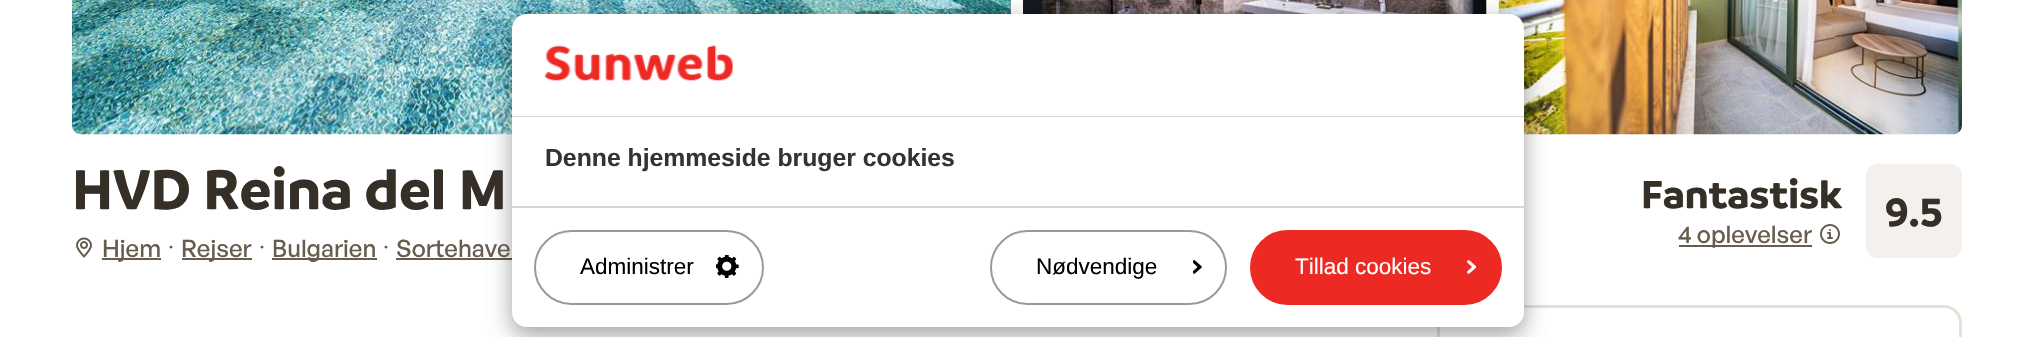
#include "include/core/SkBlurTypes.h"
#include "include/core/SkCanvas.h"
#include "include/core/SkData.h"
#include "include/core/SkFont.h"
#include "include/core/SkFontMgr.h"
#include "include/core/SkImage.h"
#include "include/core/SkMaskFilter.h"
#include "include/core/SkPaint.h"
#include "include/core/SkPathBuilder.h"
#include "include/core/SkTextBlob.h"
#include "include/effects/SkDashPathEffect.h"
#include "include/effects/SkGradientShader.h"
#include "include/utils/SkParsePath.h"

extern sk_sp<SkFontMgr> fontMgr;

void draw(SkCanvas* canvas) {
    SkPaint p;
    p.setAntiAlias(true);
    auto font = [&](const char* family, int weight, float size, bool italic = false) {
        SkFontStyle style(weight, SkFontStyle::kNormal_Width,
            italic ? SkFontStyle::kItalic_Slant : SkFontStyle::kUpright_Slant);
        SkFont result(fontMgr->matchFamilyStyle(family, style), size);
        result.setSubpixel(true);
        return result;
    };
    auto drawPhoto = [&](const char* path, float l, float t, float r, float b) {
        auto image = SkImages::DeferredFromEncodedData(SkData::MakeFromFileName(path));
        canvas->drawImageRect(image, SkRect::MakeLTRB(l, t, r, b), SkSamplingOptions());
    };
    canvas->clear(0xFFFFFFFF);
    drawPhoto("media/5.png", 72, 0, 1011, 135);
    drawPhoto("media/6.png", 1023, 0, 1487, 14);
    drawPhoto("media/7.png", 1498, 0, 1962, 135);
    p.setColor(0xFF675D4F);
    canvas->drawRect(SkRect::MakeLTRB(396, 258, 512, 260), p);
    p.setStyle(SkPaint::kStroke_Style);
    p.setStrokeWidth(3);
    p.setColor(0xFFE7E0D7);
    canvas->drawRoundRect(SkRect::MakeLTRB(1438.5f, 306.5f, 1960.5f, 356.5f), 16.5f, 16.5f, p);
    p.setStyle(SkPaint::kFill_Style);
    p.setColor(0x30000000);
    p.setMaskFilter(SkMaskFilter::MakeBlur(kNormal_SkBlurStyle, 11));
    canvas->drawRoundRect(SkRect::MakeLTRB(512, 21, 1524, 335), 15, 15, p);
    p.setMaskFilter(nullptr);
    p.setColor(0x33000000);
    p.setMaskFilter(SkMaskFilter::MakeBlur(kNormal_SkBlurStyle, 11));
    canvas->drawRoundRect(SkRect::MakeLTRB(512, 21, 1524, 335), 15, 15, p);
    p.setMaskFilter(nullptr);
    p.setColor(0xFFFFFFFF);
    canvas->drawPath(SkPathBuilder().moveTo(527, 14).lineTo(1509, 14).cubicTo(1517.5f, 14, 1524, 20.5f, 1524, 29).lineTo(1524, 117).lineTo(512, 117).lineTo(512, 29).cubicTo(512, 20.5f, 518.5f, 14, 527, 14).close().detach(), p);
    p.setColor(0xFFD6D6D6);
    canvas->drawRect(SkRect::MakeLTRB(512, 116, 1524, 117), p);
    drawPhoto("media/1.png", 544, 45, 733, 81);
    p.setColor(0xFFFFFFFF);
    canvas->drawRect(SkRect::MakeLTRB(512, 117, 1524, 206), p);
    auto font1 = font("Liberation Sans", 700, 24.75f);
    p.setColor(0xFF333333);
    canvas->drawString("Denne hjemmeside bruger cookies", 545, 166, font1, p);
    p.setColor(0xFFFFFFFF);
    canvas->drawPath(SkPathBuilder().moveTo(512, 206).lineTo(1524, 206).lineTo(1524, 312).cubicTo(1524, 320.5f, 1517.5f, 327, 1509, 327).lineTo(527, 327).cubicTo(518.5f, 327, 512, 320.5f, 512, 312).close().detach(), p);
    p.setColor(0xFFD6D6D6);
    canvas->drawRect(SkRect::MakeLTRB(512, 206, 1524, 208), p);
    p.setStyle(SkPaint::kStroke_Style);
    p.setStrokeWidth(2);
    p.setColor(0xFF999999);
    canvas->drawRoundRect(SkRect::MakeLTRB(535, 231, 763, 304), 36.5f, 36.5f, p);
    auto font2 = font("Liberation Sans", 400, 22.5f);
    p.setStyle(SkPaint::kFill_Style);
    p.setColor(0xFF000000);
    canvas->drawString("Administrer", 580, 274, font2, p);
    drawPhoto("media/2.png", 716, 255, 739, 278);
    p.setStyle(SkPaint::kStroke_Style);
    p.setColor(0xFF999999);
    canvas->drawRoundRect(SkRect::MakeLTRB(991, 231, 1226, 304), 36.5f, 36.5f, p);
    p.setStyle(SkPaint::kFill_Style);
    p.setColor(0xFF000000);
    canvas->drawString("Nødvendige", 1036, 274, font2, p);
    drawPhoto("media/3.png", 1193, 260, 1202, 274);
    p.setColor(0xFFED2924);
    canvas->drawRoundRect(SkRect::MakeLTRB(1251, 231, 1501, 304), 36.5f, 36.5f, p);
    p.setStyle(SkPaint::kStroke_Style);
    canvas->drawRoundRect(SkRect::MakeLTRB(1251, 231, 1501, 304), 36.5f, 36.5f, p);
    p.setStyle(SkPaint::kFill_Style);
    p.setColor(0xFFFFFFFF);
    canvas->drawString("Tillad cookies", 1295, 274, font2, p);
    drawPhoto("media/4.png", 1467, 260, 1476, 274);
    auto font3 = font("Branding", 700, 60);
    p.setColor(0xFF352F28);
    canvas->drawString("HVD Reina del M", 72, 209, font3, p);
    drawPhoto("media/8.png", 76, 237, 92, 258);
    p.setColor(0xFF675D4F);
    canvas->drawRect(SkRect::MakeLTRB(102, 258, 161, 260), p);
    auto font4 = font("General Sans", 500, 24);
    canvas->drawString("Hjem", 102, 257, font4, p);
    auto font5 = font("Liberation Serif", 400, 24);
    canvas->drawString("·", 167, 255, font5, p);
    canvas->drawRect(SkRect::MakeLTRB(182, 258, 252, 260), p);
    canvas->drawString("Rejser", 181, 257, font4, p);
    canvas->drawString("·", 258, 255, font5, p);
    canvas->drawRect(SkRect::MakeLTRB(272, 258, 377, 260), p);
    canvas->drawString("Bulgarien", 272, 257, font4, p);
    canvas->drawString("·", 382, 255, font5, p);
    canvas->drawString("Sortehave", 396, 257, font4, p);
    auto font6 = font("Branding", 700, 42);
    p.setColor(0xFF352F28);
    canvas->drawString("Fantastisk", 1641, 208, font6, p);
    p.setColor(0xFF675D4F);
    canvas->drawRect(SkRect::MakeLTRB(1679, 245, 1812, 247), p);
    canvas->drawString("4 oplevelser", 1678, 243, font4, p);
    drawPhoto("media/9.png", 1820, 224, 1840, 244);
    p.setColor(0xFFF3F0ED);
    canvas->drawRoundRect(SkRect::MakeLTRB(1866, 164, 1962, 258), 12, 12, p);
    p.setColor(0xFF352F28);
    canvas->drawString("9.5", 1885, 226, font6, p);
}
